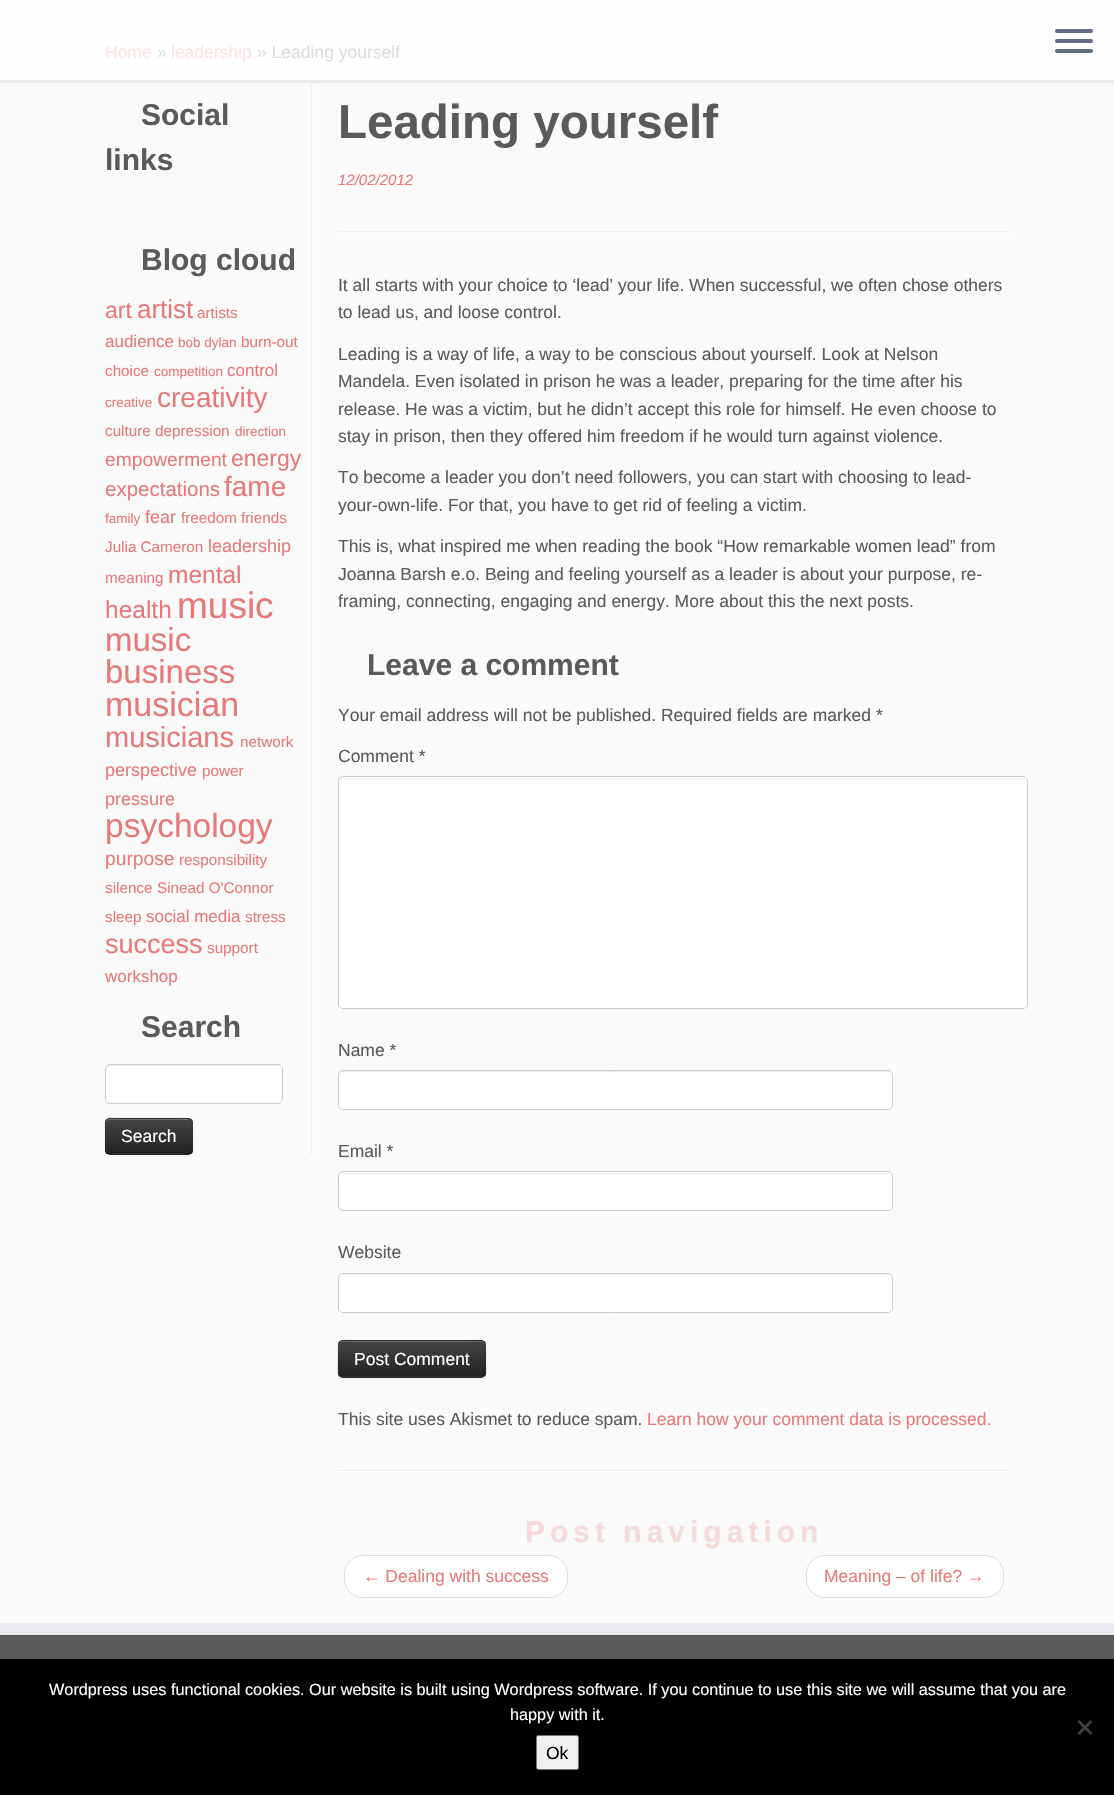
#include "include/core/SkBlurTypes.h"
#include "include/core/SkCanvas.h"
#include "include/core/SkData.h"
#include "include/core/SkFont.h"
#include "include/core/SkFontMgr.h"
#include "include/core/SkImage.h"
#include "include/core/SkMaskFilter.h"
#include "include/core/SkPaint.h"
#include "include/core/SkPathBuilder.h"
#include "include/core/SkTextBlob.h"
#include "include/effects/SkDashPathEffect.h"
#include "include/effects/SkGradientShader.h"
#include "include/utils/SkParsePath.h"

extern sk_sp<SkFontMgr> fontMgr;

void draw(SkCanvas* canvas) {
    SkPaint p;
    p.setAntiAlias(true);
    auto font = [&](const char* family, int weight, float size, bool italic = false) {
        SkFontStyle style(weight, SkFontStyle::kNormal_Width,
            italic ? SkFontStyle::kItalic_Slant : SkFontStyle::kUpright_Slant);
        SkFont result(fontMgr->matchFamilyStyle(family, style), size);
        result.setSubpixel(true);
        return result;
    };
    auto drawTracked = [&](const char* s, float x, float y, const SkFont& font, const SkPaint& ink, float letter, float word) {
        std::vector<SkGlyphID> glyphs(font.countText(s, strlen(s), SkTextEncoding::kUTF8));
        std::vector<float> xs(glyphs.size());
        font.textToGlyphs(s, strlen(s), SkTextEncoding::kUTF8, glyphs);
        font.getXPos(glyphs, xs, x);
        float extra = 0;
        for (size_t i = 0; i < glyphs.size(); i++) {
            xs[i] += extra;
            extra += letter + word * (glyphs[i] == font.unicharToGlyph(' '));
        }
        canvas->drawTextBlob(SkTextBlob::MakeFromPosHGlyphs(glyphs, xs, y, font), 0, 0, ink);
    };
    canvas->clear(0xFFFAFAFA);
    {
        const struct { float l, t, r, b; SkColor color; } items[] = {
            {0, 0, 1114, 80, 0xFFFEFEFE},
            {311, 79, 312, 1155, 0xFFEEEEEE},
            {311, 79, 312, 83, 0xFFFCFCFC},
            {313, 79, 314, 1155, 0xFFFFFFFF},
            {0, 80, 1114, 83, 0xFFE9EAEE},
        };
        for (auto [l, t, r, b, color] : items) {
            p.setColor(color);
            canvas->drawRect(SkRect::MakeLTRB(l, t, r, b), p);
        }
    }
    p.setColor(0xFF5F6F81);
    canvas->drawRoundRect(SkRect::MakeLTRB(1055, 29, 1093, 33), 2, 2, p);
    canvas->drawRoundRect(SkRect::MakeLTRB(1055, 39, 1093, 43), 2, 2, p);
    canvas->drawRoundRect(SkRect::MakeLTRB(1055, 49, 1093, 53), 2, 2, p);
    auto font1 = font("Liberation Sans", 400, 17.5f);
    p.setColor(0xFFFAE4E4);
    canvas->drawString("Home", 105, 58, font1, p);
    p.setColor(0xFFDEDEDE);
    canvas->drawString("»", 157, 58, font1, p);
    p.setColor(0xFFFAE4E4);
    canvas->drawString("leadership", 171, 58, font1, p);
    p.setColor(0xFFDEDEDE);
    canvas->drawString("» Leading yourself", 257, 58, font1, p);
    auto font2 = font("Liberation Sans", 700, 30);
    p.setColor(0xFF5A5A5A);
    {
        const struct { const char* s; float x, y; } items[] = {
            {"Social", 141, 125},
            {"links", 105, 170},
            {"Blog cloud", 141, 270},
        };
        for (auto [s, x, y] : items) {
            canvas->drawString(s, x, y, font2, p);
        }
    }
    auto font3 = font("Liberation Sans", 400, 23);
    p.setColor(0xFFE7797A);
    canvas->drawString("art", 105, 318, font3, p);
    auto font4 = font("Liberation Sans", 400, 26);
    canvas->drawString("artist", 137, 318, font4, p);
    auto font5 = font("Liberation Sans", 400, 15.25f);
    canvas->drawString("artists", 197, 318, font5, p);
    auto font6 = font("Liberation Sans", 400, 17);
    canvas->drawString("audience", 105, 347, font6, p);
    auto font7 = font("Liberation Sans", 400, 13.5f);
    canvas->drawString("bob dylan", 178, 347, font7, p);
    canvas->drawString("burn-out", 241, 347, font5, p);
    canvas->drawString("choice", 105, 376, font5, p);
    canvas->drawString("competition", 154, 376, font7, p);
    canvas->drawString("control", 227, 376, font6, p);
    canvas->drawString("creative", 105, 407, font7, p);
    auto font8 = font("Liberation Sans", 400, 28);
    canvas->drawString("creativity", 157, 407, font8, p);
    canvas->drawString("culture", 105, 436, font5, p);
    canvas->drawString("depression", 155, 436, font5, p);
    canvas->drawString("direction", 235, 436, font7, p);
    auto font9 = font("Liberation Sans", 400, 19.25f);
    canvas->drawString("empowerment", 105, 466, font9, p);
    canvas->drawString("energy", 231, 466, font3, p);
    auto font10 = font("Liberation Sans", 400, 20.5f);
    canvas->drawString("expectations", 105, 496, font10, p);
    canvas->drawString("fame", 224, 496, font8, p);
    canvas->drawString("family", 105, 523, font7, p);
    auto font11 = font("Liberation Sans", 400, 18);
    canvas->drawString("fear", 145, 523, font11, p);
    {
        const struct { const char* s; float x, y; } items[] = {
            {"freedom", 181, 523},
            {"friends", 241, 523},
            {"Julia Cameron", 105, 552},
        };
        for (auto [s, x, y] : items) {
            canvas->drawString(s, x, y, font5, p);
        }
    }
    canvas->drawString("leadership", 208, 552, font11, p);
    canvas->drawString("meaning", 105, 583, font5, p);
    auto font12 = font("Liberation Sans", 400, 24.5f);
    canvas->drawString("mental", 168, 583, font12, p);
    canvas->drawString("health", 105, 618, font12, p);
    auto font13 = font("Liberation Sans", 400, 37);
    canvas->drawString("music", 177, 618, font13, p);
    auto font14 = font("Liberation Sans", 400, 33);
    canvas->drawString("music", 105, 651, font14, p);
    canvas->drawString("business", 105, 683, font14, p);
    auto font15 = font("Liberation Sans", 400, 34);
    canvas->drawString("musician", 105, 716, font15, p);
    auto font16 = font("Liberation Sans", 400, 29);
    canvas->drawString("musicians", 105, 747, font16, p);
    canvas->drawString("network", 240, 747, font5, p);
    canvas->drawString("perspective", 105, 776, font11, p);
    canvas->drawString("power", 202, 776, font5, p);
    canvas->drawString("pressure", 105, 805, font11, p);
    auto font17 = font("Liberation Sans", 400, 33.5f);
    canvas->drawString("psychology", 105, 837, font17, p);
    canvas->drawString("purpose", 105, 865, font9, p);
    {
        const struct { const char* s; float x, y; } items[] = {
            {"responsibility", 179, 865},
            {"silence", 105, 893},
            {"Sinead O'Connor", 157, 893},
            {"sleep", 105, 922},
        };
        for (auto [s, x, y] : items) {
            canvas->drawString(s, x, y, font5, p);
        }
    }
    canvas->drawString("social media", 146, 922, font6, p);
    canvas->drawString("stress", 245, 922, font5, p);
    auto font18 = font("Liberation Sans", 400, 27);
    canvas->drawString("success", 105, 953, font18, p);
    canvas->drawString("support", 207, 953, font5, p);
    canvas->drawString("workshop", 105, 982, font6, p);
    p.setColor(0xFF5A5A5A);
    canvas->drawString("Search", 141, 1037, font2, p);
    p.setColor(0xFFFFFFFF);
    canvas->drawRoundRect(SkRect::MakeLTRB(105, 1064, 283, 1104), 5, 5, p);
    p.setColor(0xFFECECEC);
    canvas->drawPath(SkPathBuilder().moveTo(110, 1066).lineTo(278, 1066).cubicTo(280, 1066, 281, 1068, 281, 1070).lineTo(281, 1069).cubicTo(281, 1067, 279, 1065, 277, 1065).lineTo(110, 1065).cubicTo(108, 1065, 106, 1067, 106, 1069).lineTo(106, 1070).cubicTo(106, 1068, 108, 1066, 110, 1066).close().detach(), p);
    p.setStyle(SkPaint::kStroke_Style);
    p.setStrokeWidth(1);
    p.setColor(0xFFCCCCCC);
    canvas->drawRoundRect(SkRect::MakeLTRB(105.5f, 1064.5f, 282.5f, 1103.5f), 4.5f, 4.5f, p);
    p.setStyle(SkPaint::kFill_Style);
    p.setColor(0x0D000000);
    p.setMaskFilter(SkMaskFilter::MakeBlur(kNormal_SkBlurStyle, 1));
    canvas->drawRoundRect(SkRect::MakeLTRB(105, 1119, 193, 1156), 5, 5, p);
    p.setMaskFilter(nullptr);
    p.setColor(0xFF363636);
    canvas->drawRoundRect(SkRect::MakeLTRB(105, 1118, 193, 1155), 5, 5, p);
    canvas->save();
    canvas->clipPath(SkPathBuilder().moveTo(110, 1118).lineTo(188, 1118).cubicTo(191, 1118, 193, 1120, 193, 1123).lineTo(193, 1150).cubicTo(193, 1153, 191, 1155, 188, 1155).lineTo(110, 1155).cubicTo(107, 1155, 105, 1153, 105, 1150).lineTo(105, 1123).cubicTo(105, 1120, 107, 1118, 110, 1118).close().detach(), true);
    {
        const SkColor colors[] = {0xFF444444, 0xFF222222};
        const float stops[] = {0, 1};
        const SkPoint ends[] = {{149, 1119}, {149, 1154}};
        p.setShader(SkGradientShader::MakeLinear(ends, colors, stops, 2, SkTileMode::kClamp));
        p.setAlpha(255);
    }
    canvas->drawRect(SkRect::MakeLTRB(105, 1119, 193, 1154), p);
    canvas->restore();
    p.setShader(nullptr);
    p.setColor(0x33FFFFFF);
    canvas->drawPath(SkPathBuilder().moveTo(110, 1120).lineTo(188, 1120).cubicTo(190, 1120, 191, 1122, 191, 1124).cubicTo(191, 1116, 179, 1119, 174, 1119).lineTo(123, 1119).cubicTo(118, 1119, 106, 1116, 106, 1124).cubicTo(106, 1122, 108, 1120, 110, 1120).close().detach(), p);
    p.setStyle(SkPaint::kStroke_Style);
    p.setStrokeWidth(1.2f);
    p.setColor(0x40000000);
    canvas->drawPath(SkPathBuilder().moveTo(190.5f, 1153).lineTo(188, 1154.5f).lineTo(109.5f, 1154.5f).lineTo(107, 1153).detach(), p);
    p.setColor(0x1A000000);
    canvas->drawPath(SkPathBuilder().moveTo(107, 1153).cubicTo(105, 1151, 105.5f, 1148, 105.5f, 1145.5f).lineTo(105.5f, 1136).cubicTo(105.5f, 1116, 102.5f, 1118, 123, 1118).lineTo(174.5f, 1118).cubicTo(195, 1118, 192, 1116, 192, 1136).lineTo(192, 1145.5f).cubicTo(192, 1148, 192.5f, 1151, 190.5f, 1153).detach(), p);
    p.setStyle(SkPaint::kFill_Style);
    p.setColor(0xFFFFFFFF);
    canvas->drawString("Search", 121, 1142, font1, p);
    auto font19 = font("Liberation Sans", 700, 47.5f);
    p.setColor(0xFF5A5A5A);
    canvas->drawString("Leading yourself", 338, 138, font19, p);
    auto font20 = font("Liberation Sans", 400, 15, true);
    p.setColor(0xFFE7797A);
    canvas->drawString("12/02/2012", 338, 185, font20, p);
    p.setColor(0xFFEEEEEE);
    canvas->drawRect(SkRect::MakeLTRB(338, 231, 1010, 232), p);
    p.setColor(0xFFFFFFFF);
    canvas->drawRect(SkRect::MakeLTRB(338, 233, 1010, 234), p);
    p.setColor(0xFF5A5A5A);
    {
        const struct { const char* s; float x, y; } items[] = {
            {"It all starts with your choice to ‘lead’ your life. When successful, we often chose others", 338, 291},
            {"to lead us, and loose control.", 338, 318},
            {"Leading is a way of life, a way to be conscious about yourself. Look at Nelson", 338, 360},
            {"Mandela. Even isolated in prison he was a leader, preparing for the time after his", 338, 387},
            {"release. He was a victim, but he didn’t accept this role for himself. He even choose to", 338, 415},
            {"stay in prison, then they offered him freedom if he would turn against violence.", 338, 442},
            {"To become a leader you don’t need followers, you can start with choosing to lead-", 338, 483},
            {"your-own-life. For that, you have to get rid of feeling a victim.", 338, 511},
            {"This is, what inspired me when reading the book “How remarkable women lead” from", 338, 552},
            {"Joanna Barsh e.o. Being and feeling yourself as a leader is about your purpose, re-", 338, 580},
            {"framing, connecting, engaging and energy. More about this the next posts.", 338, 607},
        };
        for (auto [s, x, y] : items) {
            canvas->drawString(s, x, y, font1, p);
        }
    }
    canvas->drawString("Leave a comment", 367, 675, font2, p);
    canvas->drawString("Your email address will not be published. Required fields are marked *", 338, 721, font1, p);
    canvas->drawString("Comment *", 338, 762, font1, p);
    p.setColor(0xFFFFFFFF);
    canvas->drawRoundRect(SkRect::MakeLTRB(338, 776, 1028, 1009), 5, 5, p);
    p.setColor(0xFFECECEC);
    canvas->drawPath(SkPathBuilder().moveTo(342, 779).lineTo(1022, 779).cubicTo(1024, 779, 1025, 779, 1026, 780).cubicTo(1025, 779, 1024, 778, 1022, 778).lineTo(343, 778).cubicTo(342, 778, 340, 779, 340, 780).close().detach(), p);
    p.setStyle(SkPaint::kStroke_Style);
    p.setStrokeWidth(1);
    p.setColor(0xFFCCCCCC);
    canvas->drawRoundRect(SkRect::MakeLTRB(338.5f, 776.5f, 1027.5f, 1008.5f), 4.5f, 4.5f, p);
    p.setStyle(SkPaint::kFill_Style);
    p.setColor(0xFF5A5A5A);
    canvas->drawString("Name *", 338, 1056, font1, p);
    p.setColor(0xFFFFFFFF);
    canvas->drawRoundRect(SkRect::MakeLTRB(338, 1070, 893, 1110), 5, 5, p);
    p.setColor(0xFFECECEC);
    canvas->drawPath(SkPathBuilder().moveTo(342, 1072).lineTo(888, 1072).cubicTo(890, 1072, 891, 1074, 891, 1076).lineTo(891, 1075).cubicTo(891, 1073, 889, 1071, 887, 1071).lineTo(343, 1071).cubicTo(341, 1071, 339, 1073, 339, 1075).lineTo(339, 1076).cubicTo(339, 1074, 340, 1072, 342, 1072).close().detach(), p);
    p.setStyle(SkPaint::kStroke_Style);
    p.setColor(0xFFCCCCCC);
    canvas->drawRoundRect(SkRect::MakeLTRB(338.5f, 1070.5f, 892.5f, 1109.5f), 4.5f, 4.5f, p);
    p.setStyle(SkPaint::kFill_Style);
    p.setColor(0xFF5A5A5A);
    canvas->drawString("Email *", 338, 1157, font1, p);
    p.setColor(0xFFFFFFFF);
    canvas->drawRoundRect(SkRect::MakeLTRB(338, 1171, 893, 1211), 5, 5, p);
    p.setColor(0xFFECECEC);
    canvas->drawPath(SkPathBuilder().moveTo(342, 1174).lineTo(888, 1174).cubicTo(890, 1174, 891, 1175, 891, 1178).lineTo(891, 1177).cubicTo(891, 1175, 889, 1173, 887, 1173).lineTo(343, 1173).cubicTo(341, 1173, 339, 1175, 339, 1177).lineTo(339, 1178).cubicTo(339, 1175, 340, 1174, 342, 1174).close().detach(), p);
    p.setStyle(SkPaint::kStroke_Style);
    p.setColor(0xFFCCCCCC);
    canvas->drawRoundRect(SkRect::MakeLTRB(338.5f, 1171.5f, 892.5f, 1210.5f), 4.5f, 4.5f, p);
    p.setStyle(SkPaint::kFill_Style);
    p.setColor(0xFF5A5A5A);
    canvas->drawString("Website", 338, 1258, font1, p);
    p.setColor(0xFFFFFFFF);
    canvas->drawRoundRect(SkRect::MakeLTRB(338, 1273, 893, 1313), 5, 5, p);
    p.setColor(0xFFECECEC);
    canvas->drawPath(SkPathBuilder().moveTo(342, 1275).lineTo(888, 1275).cubicTo(890, 1275, 891, 1277, 891, 1279).lineTo(891, 1278).cubicTo(891, 1276, 889, 1274, 887, 1274).lineTo(343, 1274).cubicTo(341, 1274, 339, 1276, 339, 1278).lineTo(339, 1279).cubicTo(339, 1277, 340, 1275, 342, 1275).close().detach(), p);
    p.setStyle(SkPaint::kStroke_Style);
    p.setColor(0xFFCCCCCC);
    canvas->drawRoundRect(SkRect::MakeLTRB(338.5f, 1273.5f, 892.5f, 1312.5f), 4.5f, 4.5f, p);
    p.setStyle(SkPaint::kFill_Style);
    p.setColor(0x0D000000);
    p.setMaskFilter(SkMaskFilter::MakeBlur(kNormal_SkBlurStyle, 1));
    canvas->drawRoundRect(SkRect::MakeLTRB(338, 1341, 486, 1379), 5, 5, p);
    p.setMaskFilter(nullptr);
    p.setColor(0xFF363636);
    canvas->drawRoundRect(SkRect::MakeLTRB(338, 1340, 486, 1378), 5, 5, p);
    canvas->save();
    canvas->clipPath(SkPathBuilder().moveTo(343, 1340).lineTo(481, 1340).cubicTo(484, 1340, 486, 1342, 486, 1345).lineTo(486, 1373).cubicTo(486, 1376, 484, 1378, 481, 1378).lineTo(343, 1378).cubicTo(340, 1378, 338, 1376, 338, 1373).lineTo(338, 1345).cubicTo(338, 1342, 340, 1340, 343, 1340).close().detach(), true);
    {
        const SkColor colors[] = {0xFF444444, 0xFF222222};
        const float stops[] = {0, 1};
        const SkPoint ends[] = {{412, 1341}, {412, 1376}};
        p.setShader(SkGradientShader::MakeLinear(ends, colors, stops, 2, SkTileMode::kClamp));
        p.setAlpha(255);
    }
    canvas->drawRect(SkRect::MakeLTRB(338, 1341, 486, 1376), p);
    canvas->restore();
    p.setShader(nullptr);
    p.setColor(0xFF696969);
    canvas->drawPath(SkPathBuilder().moveTo(342, 1342).lineTo(481, 1342).cubicTo(483, 1342, 485, 1344, 485, 1346).lineTo(485, 1345).cubicTo(485, 1343, 483, 1341, 481, 1341).lineTo(343, 1341).cubicTo(341, 1341, 339, 1343, 339, 1345).lineTo(339, 1346).cubicTo(339, 1344, 340, 1342, 342, 1342).close().detach(), p);
    p.setStyle(SkPaint::kStroke_Style);
    p.setStrokeWidth(1.2f);
    p.setColor(0x40000000);
    canvas->drawPath(SkPathBuilder().moveTo(484.5f, 1375.5f).lineTo(481, 1377).lineTo(342, 1377).lineTo(339.5f, 1375.5f).detach(), p);
    p.setColor(0x1A000000);
    canvas->drawPath(SkPathBuilder().moveTo(339.5f, 1375.5f).cubicTo(336.5f, 1373, 338, 1366.5f, 338, 1363.5f).cubicTo(338, 1335, 334, 1340.5f, 365.5f, 1340.5f).lineTo(458, 1340.5f).cubicTo(490, 1340.5f, 485.5f, 1335, 485.5f, 1363.5f).cubicTo(485.5f, 1366.5f, 487, 1373, 484.5f, 1375.5f).detach(), p);
    p.setStyle(SkPaint::kFill_Style);
    p.setColor(0xFFFFFFFF);
    canvas->drawString("Post Comment", 354, 1365, font1, p);
    p.setColor(0xFF5A5A5A);
    canvas->drawString("This site uses Akismet to reduce spam.", 338, 1425, font1, p);
    p.setColor(0xFFE7797A);
    canvas->drawString("Learn how your comment data is processed.", 647, 1425, font1, p);
    p.setColor(0xFFEEEEEE);
    canvas->drawRect(SkRect::MakeLTRB(338, 1470, 1010, 1471), p);
    p.setColor(0xFFFFFFFF);
    canvas->drawRect(SkRect::MakeLTRB(338, 1471, 1010, 1472), p);
    p.setColor(0xFFF7DADA);
    drawTracked("Post navigation", 525, 1542, font2, p, 5, 0);
    p.setColor(0xFFFFFFFF);
    canvas->drawRoundRect(SkRect::MakeLTRB(344.5f, 1555.5f, 567.5f, 1597.5f), 18.5f, 18.5f, p);
    p.setStyle(SkPaint::kStroke_Style);
    p.setStrokeWidth(1);
    p.setColor(0xFFDDDDDD);
    canvas->drawRoundRect(SkRect::MakeLTRB(344.5f, 1555.5f, 567.5f, 1597.5f), 18.5f, 18.5f, p);
    p.setStyle(SkPaint::kFill_Style);
    p.setColor(0xFFE7797A);
    canvas->drawString("← Dealing with success", 363, 1582, font1, p);
    p.setColor(0xFFFFFFFF);
    canvas->drawRoundRect(SkRect::MakeLTRB(806.5f, 1555.5f, 1003.5f, 1597.5f), 18.5f, 18.5f, p);
    p.setStyle(SkPaint::kStroke_Style);
    p.setColor(0xFFDDDDDD);
    canvas->drawRoundRect(SkRect::MakeLTRB(806.5f, 1555.5f, 1003.5f, 1597.5f), 18.5f, 18.5f, p);
    p.setStyle(SkPaint::kFill_Style);
    p.setColor(0xFFE7797A);
    canvas->drawString("Meaning – of life? →", 824, 1582, font1, p);
    {
        const struct { float l, t, r, b; SkColor color; } items[] = {
            {0, 1635, 1114, 1659, 0xFF5A5A5A},
            {0, 1623, 1114, 1635, 0xFFE9EAEE},
            {0, 1659, 1114, 1795, 0xFF000000},
        };
        for (auto [l, t, r, b, color] : items) {
            p.setColor(color);
            canvas->drawRect(SkRect::MakeLTRB(l, t, r, b), p);
        }
    }
    auto font21 = font("Liberation Sans", 400, 16.25f);
    p.setColor(0xFFFFFFFF);
    canvas->drawString("Wordpress uses functional cookies. Our website is built using Wordpress software. If you continue to use this site we will assume that you are", 49, 1695, font21, p);
    canvas->drawString("happy with it.", 510, 1720, font21, p);
    p.setColor(0xFF404040);
    canvas->drawPath(SkPathBuilder().moveTo(1090.5f, 1720).lineTo(1092.5f, 1722).lineTo(1079.5f, 1735).lineTo(1077.5f, 1733).close().detach(), p);
    canvas->drawPath(SkPathBuilder().moveTo(1077.5f, 1722).lineTo(1079.5f, 1720).lineTo(1092.5f, 1733).lineTo(1090.5f, 1735).close().detach(), p);
    p.setColor(0xFFEFEFEF);
    canvas->drawRoundRect(SkRect::MakeLTRB(536.5f, 1735.5f, 578.5f, 1769.5f), 2, 2, p);
    p.setStyle(SkPaint::kStroke_Style);
    p.setColor(0xFF767676);
    canvas->drawRoundRect(SkRect::MakeLTRB(536.5f, 1735.5f, 578.5f, 1769.5f), 2, 2, p);
    p.setStyle(SkPaint::kFill_Style);
    p.setColor(0xFF000000);
    canvas->drawString("Ok", 546, 1759, font1, p);
}
